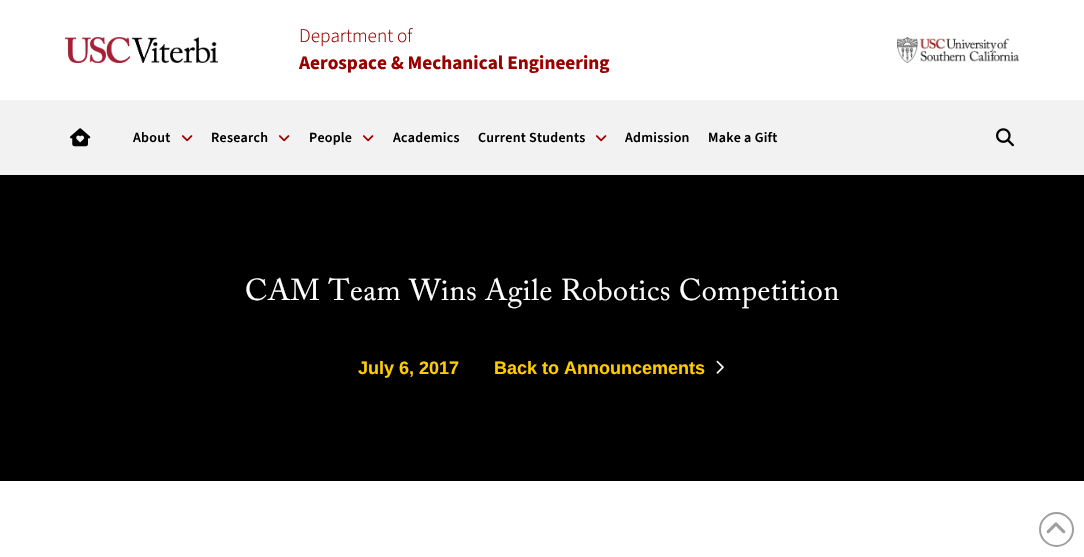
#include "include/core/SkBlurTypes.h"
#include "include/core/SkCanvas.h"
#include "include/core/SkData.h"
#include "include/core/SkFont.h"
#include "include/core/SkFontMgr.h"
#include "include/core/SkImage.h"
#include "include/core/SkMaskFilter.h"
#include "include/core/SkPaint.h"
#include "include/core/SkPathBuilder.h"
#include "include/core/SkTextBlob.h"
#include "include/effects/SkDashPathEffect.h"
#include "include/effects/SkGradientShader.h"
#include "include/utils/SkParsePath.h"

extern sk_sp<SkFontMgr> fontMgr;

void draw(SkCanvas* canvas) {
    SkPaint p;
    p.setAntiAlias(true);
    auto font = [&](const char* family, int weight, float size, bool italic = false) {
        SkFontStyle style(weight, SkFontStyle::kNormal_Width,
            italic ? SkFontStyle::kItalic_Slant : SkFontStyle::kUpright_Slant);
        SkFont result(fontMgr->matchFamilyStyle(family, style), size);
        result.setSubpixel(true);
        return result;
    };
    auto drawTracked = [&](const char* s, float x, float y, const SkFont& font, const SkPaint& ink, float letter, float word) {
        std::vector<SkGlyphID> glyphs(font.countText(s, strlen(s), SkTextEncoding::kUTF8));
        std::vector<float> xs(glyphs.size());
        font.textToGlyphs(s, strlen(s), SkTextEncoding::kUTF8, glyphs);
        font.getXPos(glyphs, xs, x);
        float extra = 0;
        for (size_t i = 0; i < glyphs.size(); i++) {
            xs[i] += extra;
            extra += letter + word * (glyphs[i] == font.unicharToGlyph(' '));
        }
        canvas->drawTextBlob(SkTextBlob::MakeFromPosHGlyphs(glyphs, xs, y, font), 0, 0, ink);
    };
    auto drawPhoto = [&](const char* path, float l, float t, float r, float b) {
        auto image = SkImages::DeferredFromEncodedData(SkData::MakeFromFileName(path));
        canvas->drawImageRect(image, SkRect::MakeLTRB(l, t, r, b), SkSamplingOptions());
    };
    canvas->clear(0xFFFFFFFF);
    drawPhoto("media/1.png", 65, 37, 218, 63);
    auto font1 = font("Source Sans 3", 300, 19.25f);
    p.setColor(0xFF990000);
    canvas->drawString("Department of", 299, 42, font1, p);
    auto font2 = font("Source Sans 3", 700, 19.25f);
    canvas->drawString("Aerospace & Mechanical Engineering", 299, 69, font2, p);
    drawPhoto("media/2.png", 897, 37, 1019, 63);
    p.setColor(0xFFF2F2F2);
    canvas->drawRect(SkRect::MakeLTRB(0, 100, 1084, 175), p);
    drawPhoto("media/3.png", 70, 128, 91, 147);
    auto font3 = font("Source Sans 3", 600, 14);
    p.setColor(0xFF000000);
    drawTracked("About", 133, 142, font3, p, 0.25f, 0);
    drawPhoto("media/4.png", 182, 135, 193, 142);
    drawTracked("Research", 211, 142, font3, p, 0.25f, 0);
    drawPhoto("media/4.png", 279, 135, 290, 142);
    drawTracked("People", 309, 142, font3, p, 0.25f, 0);
    drawPhoto("media/4.png", 363, 135, 374, 142);
    drawTracked("Academics", 393, 142, font3, p, 0.25f, 0);
    drawTracked("Current Students", 478, 142, font3, p, 0.25f, 0);
    drawPhoto("media/4.png", 596, 135, 607, 142);
    drawTracked("Admission", 625, 142, font3, p, 0.25f, 0);
    drawTracked("Make a Gift", 708, 142, font3, p, 0.25f, 0);
    drawPhoto("media/5.png", 996, 128, 1014, 147);
    canvas->drawRect(SkRect::MakeLTRB(0, 175, 1084, 481), p);
    auto font4 = font("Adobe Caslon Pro", 400, 30);
    p.setColor(0xFFFFFFFF);
    drawTracked("CAM Team Wins Agile Robotics Competition", 245, 300, font4, p, 0.45f, 0);
    auto font5 = font("Liberation Sans", 700, 18);
    p.setColor(0xFFFFCC00);
    canvas->drawString("July 6, 2017", 358, 374, font5, p);
    canvas->drawString("Back to Announcements", 494, 374, font5, p);
    drawPhoto("media/6.png", 716, 360, 724, 374);
    p.setStyle(SkPaint::kStroke_Style);
    p.setStrokeWidth(2);
    p.setColor(0xFF9F9F9F);
    canvas->drawCircle(1056.5f, 529.5f, 16.5f, p);
    drawPhoto("media/7.png", 1046, 522, 1066, 534);
}
